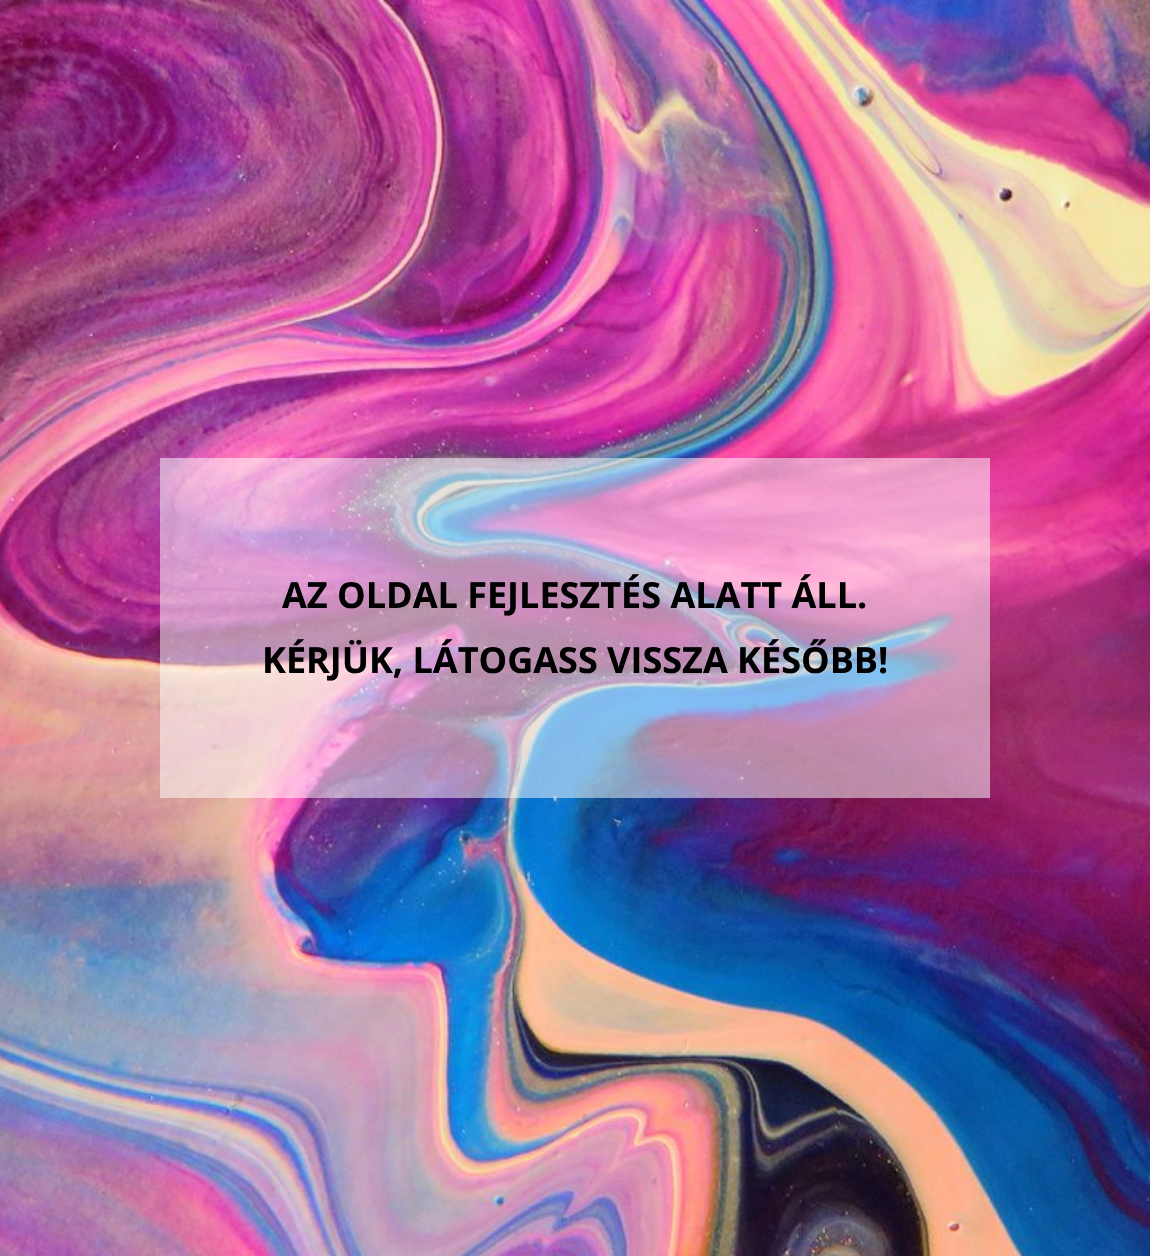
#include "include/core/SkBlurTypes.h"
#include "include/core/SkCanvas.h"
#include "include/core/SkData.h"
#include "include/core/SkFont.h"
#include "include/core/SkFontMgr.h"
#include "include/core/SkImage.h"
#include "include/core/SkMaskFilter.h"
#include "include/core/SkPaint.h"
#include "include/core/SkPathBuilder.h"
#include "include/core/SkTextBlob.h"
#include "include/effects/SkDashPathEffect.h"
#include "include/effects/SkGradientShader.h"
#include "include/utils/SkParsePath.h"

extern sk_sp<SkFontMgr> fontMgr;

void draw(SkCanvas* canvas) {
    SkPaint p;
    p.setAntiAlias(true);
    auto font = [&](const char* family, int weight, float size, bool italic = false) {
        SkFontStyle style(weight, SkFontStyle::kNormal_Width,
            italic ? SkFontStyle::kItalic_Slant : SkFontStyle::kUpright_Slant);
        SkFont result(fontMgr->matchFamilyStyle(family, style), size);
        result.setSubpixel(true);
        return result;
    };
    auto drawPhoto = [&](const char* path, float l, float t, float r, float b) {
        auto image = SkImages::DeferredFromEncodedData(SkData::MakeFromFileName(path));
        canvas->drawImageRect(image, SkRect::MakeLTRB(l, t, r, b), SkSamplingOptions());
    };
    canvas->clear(0xFFFFFFFF);
    drawPhoto("media/1.png", 0, 0, 1150, 1256);
    p.setColor(0x80FFFFFF);
    canvas->drawRect(SkRect::MakeLTRB(160, 458, 990, 798), p);
    auto font1 = font("Open Sans", 700, 36);
    p.setColor(0xFF000000);
    canvas->drawString("AZ OLDAL FEJLESZTÉS ALATT ÁLL.", 282, 608, font1, p);
    canvas->drawString("KÉRJÜK, LÁTOGASS VISSZA KÉSŐBB!", 262, 673, font1, p);
}
